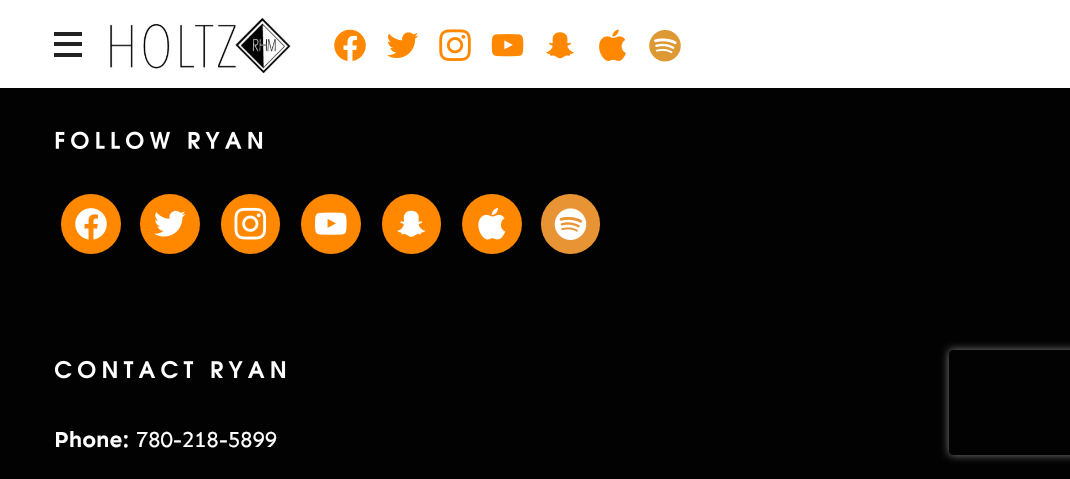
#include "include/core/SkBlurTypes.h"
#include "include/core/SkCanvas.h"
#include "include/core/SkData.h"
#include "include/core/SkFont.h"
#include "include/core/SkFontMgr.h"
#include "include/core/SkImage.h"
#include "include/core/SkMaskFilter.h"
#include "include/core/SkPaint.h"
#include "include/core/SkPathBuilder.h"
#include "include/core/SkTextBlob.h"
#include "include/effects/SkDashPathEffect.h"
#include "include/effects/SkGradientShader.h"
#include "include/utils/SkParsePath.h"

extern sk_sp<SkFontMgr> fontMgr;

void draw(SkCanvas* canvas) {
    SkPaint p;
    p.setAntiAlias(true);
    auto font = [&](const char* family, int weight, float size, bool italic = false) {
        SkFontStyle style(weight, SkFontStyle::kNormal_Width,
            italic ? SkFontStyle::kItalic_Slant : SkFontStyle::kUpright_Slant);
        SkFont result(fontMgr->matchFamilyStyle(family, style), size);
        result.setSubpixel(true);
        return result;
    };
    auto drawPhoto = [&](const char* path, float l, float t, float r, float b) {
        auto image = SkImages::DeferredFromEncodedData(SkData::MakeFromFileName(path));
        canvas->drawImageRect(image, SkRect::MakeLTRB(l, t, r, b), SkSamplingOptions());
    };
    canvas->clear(0xFF020202);
    p.setColor(0xFFFFFFFF);
    canvas->drawRect(SkRect::MakeLTRB(0, 0, 1070, 88), p);
    drawPhoto("media/1.png", 110, 17, 291, 74);
    {
        const struct { float l, t, r, b; SkColor color; } items[] = {
            {54, 42, 82, 46, 0xFF222222},
            {54, 32, 82, 36, 0xFF222222},
            {54, 53, 82, 57, 0xFF222222},
        };
        for (auto [l, t, r, b, color] : items) {
            p.setColor(color);
            canvas->drawRect(SkRect::MakeLTRB(l, t, r, b), p);
        }
    }
    drawPhoto("media/2.png", 334, 29, 366, 61);
    drawPhoto("media/3.png", 387, 32, 419, 58);
    drawPhoto("media/4.png", 439, 29, 471, 61);
    drawPhoto("media/5.png", 491, 34, 524, 57);
    drawPhoto("media/6.png", 546, 32, 574, 59);
    drawPhoto("media/7.png", 599, 29, 626, 61);
    drawPhoto("media/8.png", 649, 30, 681, 62);
    drawPhoto("media/9.png", 55, 131, 263, 149);
    p.setColor(0xFFFF8800);
    canvas->drawCircle(91, 224, 30, p);
    drawPhoto("media/10.png", 75, 208, 107, 240);
    canvas->drawCircle(170, 224, 30, p);
    drawPhoto("media/11.png", 154, 210, 186, 237);
    canvas->drawRoundRect(SkRect::MakeLTRB(221, 194, 280, 254), 29.5f, 29.5f, p);
    drawPhoto("media/12.png", 234, 207, 267, 240);
    canvas->drawCircle(331, 224, 30, p);
    drawPhoto("media/13.png", 315, 212, 347, 235);
    canvas->drawRoundRect(SkRect::MakeLTRB(382, 194, 441, 254), 29.5f, 29.5f, p);
    drawPhoto("media/14.png", 397, 210, 426, 237);
    canvas->drawCircle(492, 224, 30, p);
    drawPhoto("media/15.png", 478, 208, 506, 240);
    p.setColor(0xFFE89435);
    canvas->drawRoundRect(SkRect::MakeLTRB(541, 194, 600, 254), 29.5f, 29.5f, p);
    drawPhoto("media/16.png", 554, 208, 587, 240);
    drawPhoto("media/17.png", 54, 360, 286, 379);
    auto font1 = font("Sen", 700, 22.75f);
    p.setColor(0xFFFFFFFF);
    canvas->drawString("Phone:", 54, 447, font1, p);
    auto font2 = font("Sen", 400, 22.75f);
    canvas->drawString("780-218-5899", 136, 447, font2, p);
    canvas->save();
    canvas->clipPath(SkPathBuilder(SkPathFillType::kEvenOdd).moveTo(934, 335).lineTo(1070, 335).lineTo(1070, 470).lineTo(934, 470).close().moveTo(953, 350).lineTo(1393, 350).cubicTo(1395, 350, 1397, 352, 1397, 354).lineTo(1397, 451).cubicTo(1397, 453, 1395, 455, 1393, 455).lineTo(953, 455).cubicTo(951, 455, 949, 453, 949, 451).lineTo(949, 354).cubicTo(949, 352, 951, 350, 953, 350).close().detach(), true);
    p.setColor(0xFF808080);
    p.setMaskFilter(SkMaskFilter::MakeBlur(kNormal_SkBlurStyle, 4.5f));
    canvas->drawRoundRect(SkRect::MakeLTRB(949, 350, 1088, 455), 4, 4, p);
    p.setMaskFilter(nullptr);
    canvas->restore();
}
